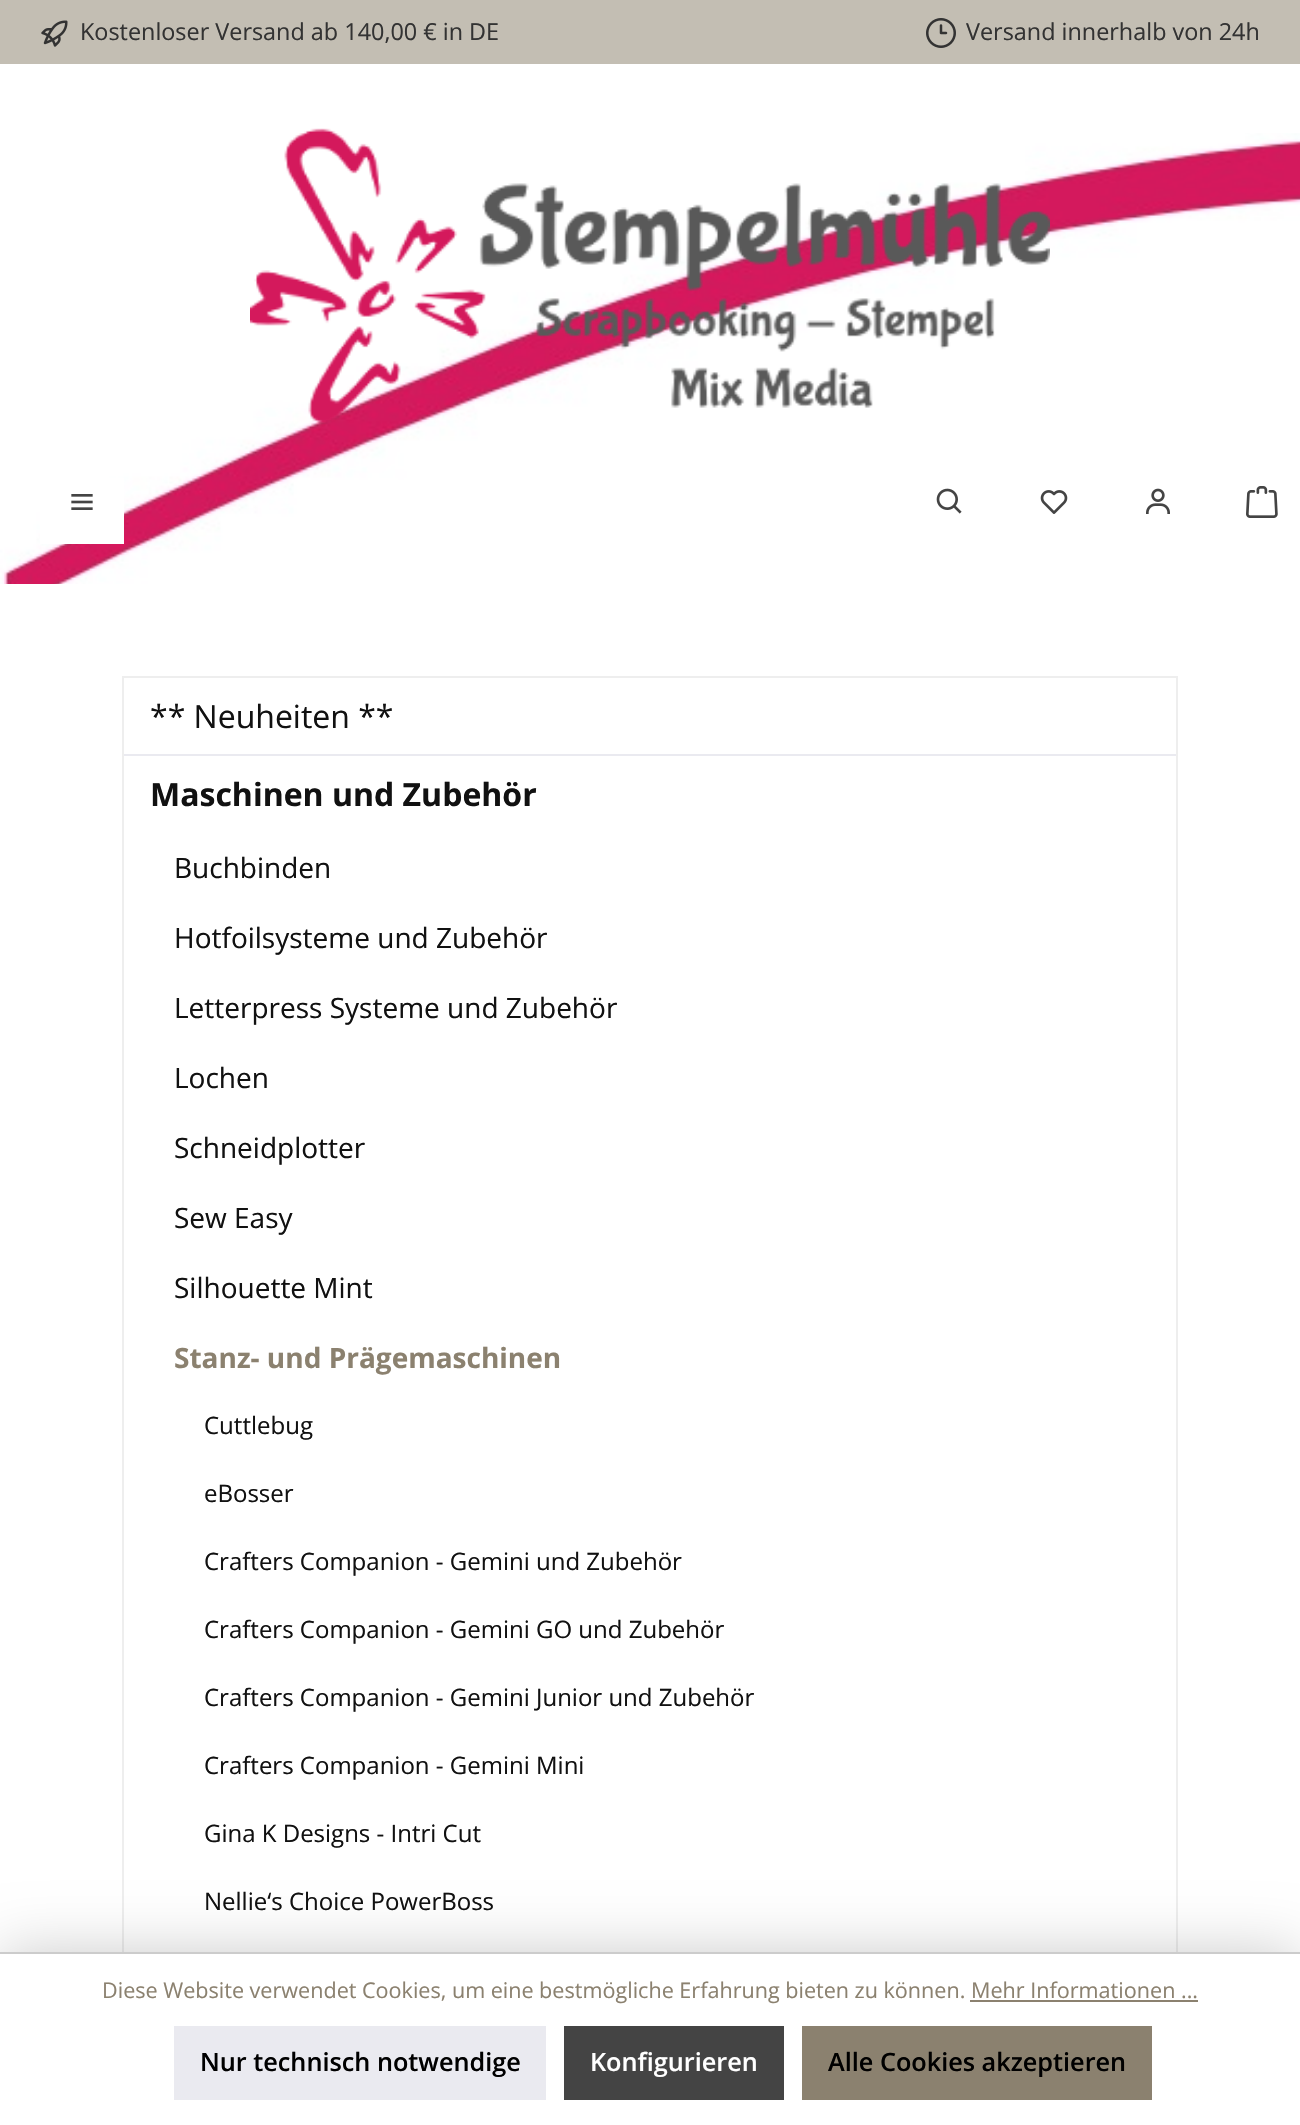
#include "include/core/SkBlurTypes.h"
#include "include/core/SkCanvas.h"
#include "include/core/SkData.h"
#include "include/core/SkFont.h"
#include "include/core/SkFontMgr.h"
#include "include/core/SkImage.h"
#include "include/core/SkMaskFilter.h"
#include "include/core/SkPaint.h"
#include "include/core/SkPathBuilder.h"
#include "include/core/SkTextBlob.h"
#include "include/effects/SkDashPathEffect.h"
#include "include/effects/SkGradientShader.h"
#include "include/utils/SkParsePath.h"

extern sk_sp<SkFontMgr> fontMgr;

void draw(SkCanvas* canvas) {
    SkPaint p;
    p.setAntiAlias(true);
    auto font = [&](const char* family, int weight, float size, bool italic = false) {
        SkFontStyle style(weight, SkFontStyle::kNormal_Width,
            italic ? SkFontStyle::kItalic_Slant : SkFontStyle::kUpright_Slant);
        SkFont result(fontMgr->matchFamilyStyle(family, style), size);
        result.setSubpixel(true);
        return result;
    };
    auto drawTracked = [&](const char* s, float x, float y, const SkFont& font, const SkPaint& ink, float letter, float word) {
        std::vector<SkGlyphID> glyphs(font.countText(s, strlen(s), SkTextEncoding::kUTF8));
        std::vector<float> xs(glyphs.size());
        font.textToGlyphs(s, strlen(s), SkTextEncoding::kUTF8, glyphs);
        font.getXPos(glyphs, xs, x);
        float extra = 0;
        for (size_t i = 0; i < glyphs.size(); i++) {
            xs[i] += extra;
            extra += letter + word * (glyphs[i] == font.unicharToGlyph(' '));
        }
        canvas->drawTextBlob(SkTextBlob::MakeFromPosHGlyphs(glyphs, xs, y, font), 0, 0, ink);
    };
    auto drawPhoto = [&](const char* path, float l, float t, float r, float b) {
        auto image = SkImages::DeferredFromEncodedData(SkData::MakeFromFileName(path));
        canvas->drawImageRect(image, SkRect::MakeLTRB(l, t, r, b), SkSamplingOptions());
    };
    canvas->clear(0xFFFFFFFF);
    p.setColor(0xFFC3BEB3);
    canvas->drawRect(SkRect::MakeLTRB(0, 0, 1300, 64), p);
    drawPhoto("media/1.png", 41, 20, 68, 47);
    auto font1 = font("Open Sans", 400, 23.4f);
    p.setColor(0xFF333333);
    canvas->drawString("Kostenloser Versand ab 140,00 € in DE", 80, 40, font1, p);
    drawPhoto("media/2.png", 926, 18, 956, 48);
    canvas->drawString("Versand innerhalb von 24h", 966, 40, font1, p);
    drawPhoto("media/3.png", 0, 133, 1300, 584);
    drawPhoto("media/4.png", 250, 128, 1050, 423);
    p.setColor(0xFFFFFFFF);
    canvas->drawRect(SkRect::MakeLTRB(40, 478, 124, 544), p);
    drawPhoto("media/5.png", 71, 494, 93, 510);
    drawPhoto("media/6.png", 936, 488, 962, 514);
    drawPhoto("media/7.png", 1040, 490, 1068, 514);
    drawPhoto("media/8.png", 1146, 488, 1170, 514);
    drawPhoto("media/9.png", 1246, 486, 1278, 518);
    p.setStyle(SkPaint::kStroke_Style);
    p.setStrokeWidth(2);
    p.setColor(0xFFEEEEEE);
    canvas->drawRect(SkRect::MakeLTRB(123, 677, 1177, 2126), p);
    p.setStyle(SkPaint::kFill_Style);
    p.setColor(0xFFEAEAF0);
    canvas->drawRect(SkRect::MakeLTRB(124, 754, 1176, 756), p);
    auto font2 = font("Open Sans", 400, 32);
    p.setColor(0xFF111111);
    canvas->drawString("** Neuheiten **", 150, 728, font2, p);
    auto font3 = font("Open Sans", 700, 32);
    canvas->drawString("Maschinen und Zubehör", 150, 806, font3, p);
    auto font4 = font("Open Sans", 400, 28);
    {
        const struct { const char* s; float x, y; } items[] = {
            {"Buchbinden", 174, 878},
            {"Hotfoilsysteme und Zubehör", 174, 948},
            {"Letterpress Systeme und Zubehör", 174, 1018},
            {"Lochen", 174, 1088},
            {"Schneidplotter", 174, 1158},
            {"Sew Easy", 174, 1228},
            {"Silhouette Mint", 174, 1298},
        };
        for (auto [s, x, y] : items) {
            canvas->drawString(s, x, y, font4, p);
        }
    }
    auto font5 = font("Open Sans", 700, 28);
    p.setColor(0xFF8B816F);
    canvas->drawString("Stanz- und Prägemaschinen", 174, 1368, font5, p);
    auto font6 = font("Open Sans", 400, 24);
    p.setColor(0xFF111111);
    {
        const struct { const char* s; float x, y; } items[] = {
            {"Cuttlebug", 204, 1434},
            {"eBosser", 204, 1502},
            {"Crafters Companion - Gemini und Zubehör", 204, 1570},
            {"Crafters Companion - Gemini GO und Zubehör", 204, 1638},
            {"Crafters Companion - Gemini Junior und Zubehör", 204, 1706},
            {"Crafters Companion - Gemini Mini", 204, 1774},
            {"Gina K Designs - Intri Cut", 204, 1842},
            {"Nellie‘s Choice PowerBoss", 204, 1910},
        };
        for (auto [s, x, y] : items) {
            canvas->drawString(s, x, y, font6, p);
        }
    }
    p.setColor(0x33000000);
    p.setMaskFilter(SkMaskFilter::MakeBlur(kNormal_SkBlurStyle, 30));
    canvas->drawRect(SkRect::MakeLTRB(0, 1952, 1300, 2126), p);
    p.setMaskFilter(nullptr);
    p.setColor(0xFFFFFFFF);
    canvas->drawRect(SkRect::MakeLTRB(0, 1954, 1300, 2125), p);
    p.setColor(0xFFCCCCCC);
    canvas->drawRect(SkRect::MakeLTRB(0, 1952, 1300, 1954), p);
    auto font7 = font("Open Sans", 400, 21.6f);
    p.setColor(0xFF8B816F);
    drawTracked("Diese Website verwendet Cookies, um eine bestmögliche Erfahrung bieten zu können.", 102, 1998, font7, p, 0, -0.1f);
    canvas->drawString("Mehr Informationen ...", 971, 1998, font7, p);
    canvas->drawRect(SkRect::MakeLTRB(970, 2000, 1198, 2002), p);
    p.setColor(0xFFEAEAF0);
    canvas->drawRect(SkRect::MakeLTRB(174, 2026, 546, 2100), p);
    auto font8 = font("Open Sans", 600, 25.25f);
    p.setColor(0xFF000000);
    canvas->drawString("Nur technisch notwendige", 200, 2071, font8, p);
    p.setColor(0xFF444444);
    canvas->drawRect(SkRect::MakeLTRB(564, 2026, 784, 2100), p);
    p.setColor(0xFFFFFFFF);
    canvas->drawString("Konfigurieren", 590, 2071, font8, p);
    p.setColor(0xFF8B816F);
    canvas->drawRect(SkRect::MakeLTRB(802, 2026, 1152, 2100), p);
    p.setColor(0xFF000000);
    canvas->drawString("Alle Cookies akzeptieren", 828, 2071, font8, p);
}
